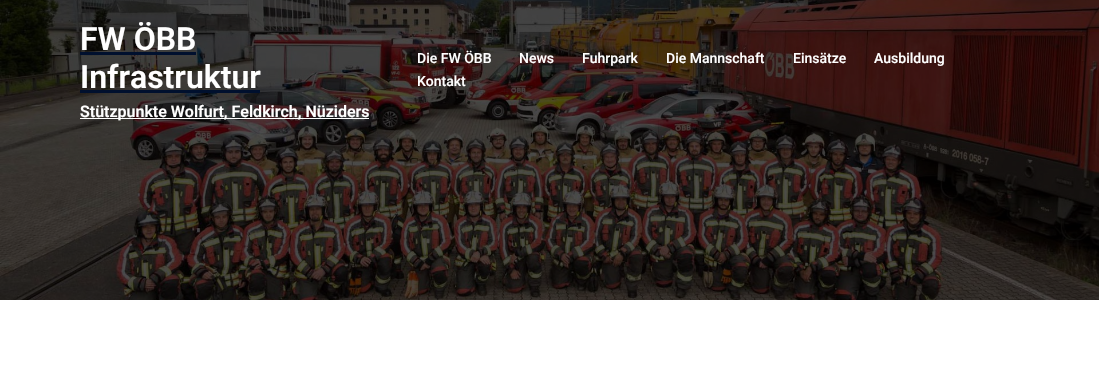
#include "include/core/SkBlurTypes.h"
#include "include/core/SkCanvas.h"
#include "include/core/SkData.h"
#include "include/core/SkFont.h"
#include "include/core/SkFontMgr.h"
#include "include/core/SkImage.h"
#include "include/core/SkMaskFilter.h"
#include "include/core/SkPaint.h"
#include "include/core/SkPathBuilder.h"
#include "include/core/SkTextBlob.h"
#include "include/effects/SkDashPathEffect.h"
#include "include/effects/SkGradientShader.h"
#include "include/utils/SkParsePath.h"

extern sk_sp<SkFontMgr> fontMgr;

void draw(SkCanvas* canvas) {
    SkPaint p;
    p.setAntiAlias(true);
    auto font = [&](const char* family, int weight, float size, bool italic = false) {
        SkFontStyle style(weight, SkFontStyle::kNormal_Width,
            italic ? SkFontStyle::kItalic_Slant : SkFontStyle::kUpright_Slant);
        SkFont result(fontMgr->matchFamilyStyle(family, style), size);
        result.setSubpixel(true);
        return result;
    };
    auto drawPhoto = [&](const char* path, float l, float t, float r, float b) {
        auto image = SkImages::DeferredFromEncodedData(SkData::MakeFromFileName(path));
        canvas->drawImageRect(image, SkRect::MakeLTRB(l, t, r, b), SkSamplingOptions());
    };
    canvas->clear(0xFFFFFFFF);
    drawPhoto("media/1.png", 0, 0, 1099, 300);
    auto font1 = font("Roboto", 600, 32);
    p.setColor(0xFFFFFFFF);
    canvas->drawString("FW ÖBB", 80, 50, font1, p);
    p.setColor(0xFF00102E);
    canvas->drawRect(SkRect::MakeLTRB(80, 52, 196, 55), p);
    p.setColor(0xFFFFFFFF);
    canvas->drawString("Infrastruktur", 80, 88, font1, p);
    p.setColor(0xFF00102E);
    canvas->drawRect(SkRect::MakeLTRB(80, 90, 260, 93), p);
    p.setColor(0xFFFFFFFF);
    canvas->drawRect(SkRect::MakeLTRB(80, 118, 369, 119), p);
    auto font2 = font("Roboto", 600, 16);
    canvas->drawString("Stützpunkte Wolfurt, Feldkirch, Nüziders", 80, 117, font2, p);
    auto font3 = font("Roboto", 500, 14);
    {
        const struct { const char* s; float x, y; } items[] = {
            {"Die FW ÖBB", 417, 63},
            {"News", 519, 63},
            {"Fuhrpark", 582, 63},
            {"Die Mannschaft", 666, 63},
            {"Einsätze", 793, 63},
            {"Ausbildung", 874, 63},
            {"Kontakt", 417, 86},
        };
        for (auto [s, x, y] : items) {
            canvas->drawString(s, x, y, font3, p);
        }
    }
}
